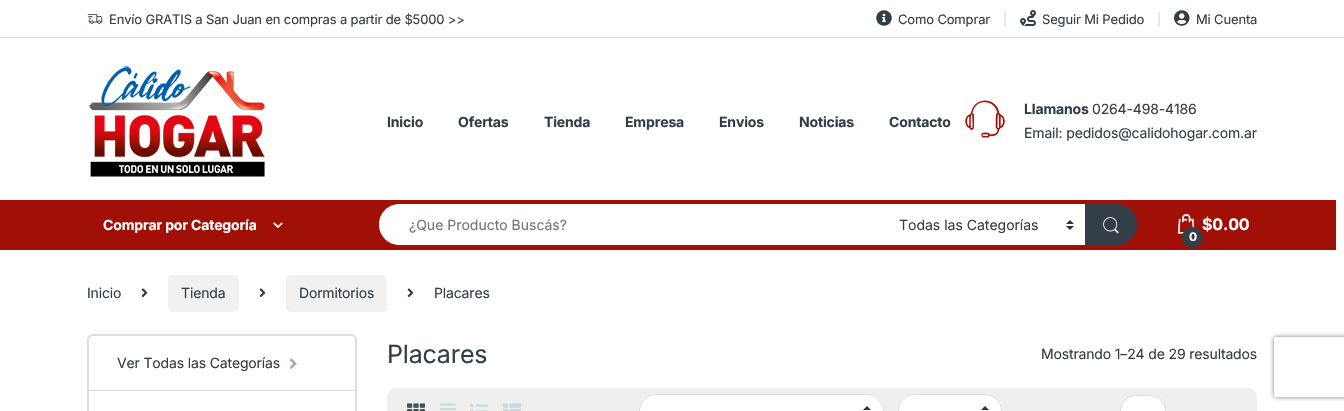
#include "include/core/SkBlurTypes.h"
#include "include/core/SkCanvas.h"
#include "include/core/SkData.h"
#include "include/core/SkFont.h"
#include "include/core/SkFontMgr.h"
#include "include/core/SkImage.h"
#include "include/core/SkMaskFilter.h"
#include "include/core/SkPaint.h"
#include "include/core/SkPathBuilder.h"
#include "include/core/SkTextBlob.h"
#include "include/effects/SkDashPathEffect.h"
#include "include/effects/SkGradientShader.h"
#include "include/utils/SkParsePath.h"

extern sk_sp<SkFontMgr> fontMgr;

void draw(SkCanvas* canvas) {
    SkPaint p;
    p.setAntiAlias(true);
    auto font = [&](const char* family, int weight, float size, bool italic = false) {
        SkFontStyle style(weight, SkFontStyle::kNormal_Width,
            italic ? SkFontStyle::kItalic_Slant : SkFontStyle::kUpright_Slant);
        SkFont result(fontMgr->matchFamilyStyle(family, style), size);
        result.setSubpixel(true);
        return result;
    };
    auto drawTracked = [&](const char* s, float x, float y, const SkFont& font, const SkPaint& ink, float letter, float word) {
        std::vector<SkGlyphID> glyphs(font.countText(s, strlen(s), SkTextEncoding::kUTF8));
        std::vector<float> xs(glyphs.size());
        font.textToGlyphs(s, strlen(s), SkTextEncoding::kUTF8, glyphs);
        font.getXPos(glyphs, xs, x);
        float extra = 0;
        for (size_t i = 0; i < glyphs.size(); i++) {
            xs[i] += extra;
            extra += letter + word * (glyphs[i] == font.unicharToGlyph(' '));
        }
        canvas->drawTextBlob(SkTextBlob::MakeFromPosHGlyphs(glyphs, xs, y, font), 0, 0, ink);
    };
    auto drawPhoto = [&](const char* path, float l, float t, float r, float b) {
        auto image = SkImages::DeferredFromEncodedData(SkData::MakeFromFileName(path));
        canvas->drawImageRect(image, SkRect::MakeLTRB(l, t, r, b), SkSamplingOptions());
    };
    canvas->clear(0xFFFFFFFF);
    p.setColor(0xFFDDDDDD);
    canvas->drawRect(SkRect::MakeLTRB(0, 37, 1344, 38), p);
    drawPhoto("media/1.png", 87, 14, 103, 24);
    auto font1 = font("Inter", 400, 13);
    p.setColor(0xFF333E48);
    drawTracked("Envío GRATIS a San Juan en compras a partir de $5000 >>", 109, 24, font1, p, -0.15f, 0);
    drawPhoto("media/2.png", 876, 10, 892, 26);
    drawTracked("Como Comprar", 898, 24, font1, p, -0.15f, 0);
    p.setColor(0xFFDDDDDD);
    drawTracked("|", 1003, 24, font1, p, -0.15f, 0);
    drawPhoto("media/3.png", 1020, 10, 1036, 26);
    p.setColor(0xFF333E48);
    drawTracked("Seguir Mi Pedido", 1042, 24, font1, p, -0.15f, 0);
    p.setColor(0xFFDDDDDD);
    drawTracked("|", 1157, 24, font1, p, -0.15f, 0);
    drawPhoto("media/4.png", 1174, 10, 1190, 26);
    p.setColor(0xFF333E48);
    drawTracked("Mi Cuenta", 1196, 24, font1, p, -0.15f, 0);
    drawPhoto("media/5.png", 89, 66, 265, 177);
    auto font2 = font("Inter", 700, 14);
    {
        const struct { const char* s; float x, y; } items[] = {
            {"Inicio", 387, 127},
            {"Ofertas", 458, 127},
            {"Tienda", 544, 127},
            {"Empresa", 625, 127},
            {"Envios", 719, 127},
            {"Noticias", 799, 127},
            {"Contacto", 889, 127},
        };
        for (auto [s, x, y] : items) {
            drawTracked(s, x, y, font2, p, -0.15f, 0);
        }
    }
    drawPhoto("media/6.png", 965, 100, 1005, 138);
    drawTracked("Llamanos", 1024, 114, font2, p, -0.15f, 0);
    auto font3 = font("Inter", 400, 14);
    drawTracked("0264-498-4186", 1092, 114, font3, p, -0.15f, 0);
    drawTracked("Email: pedidos@calidohogar.com.ar", 1024, 138, font3, p, -0.15f, 0);
    p.setColor(0xFFA01006);
    canvas->drawRect(SkRect::MakeLTRB(0, 200, 1336, 250), p);
    p.setColor(0xFFFFFFFF);
    drawTracked("Comprar por Categoría", 103, 230, font2, p, -0.15f, 0);
    drawPhoto("media/7.png", 273, 222, 283, 228);
    canvas->drawPath(SkPathBuilder().moveTo(399.5f, 204).lineTo(888, 204).lineTo(888, 245).lineTo(399.5f, 245).cubicTo(388, 245, 379, 236, 379, 224.5f).cubicTo(379, 213, 388, 204, 399.5f, 204).close().detach(), p);
    p.setColor(0xFF6C757D);
    canvas->drawString("¿Que Producto Buscás?", 409, 230, font3, p);
    p.setColor(0xFFFFFFFF);
    canvas->drawRect(SkRect::MakeLTRB(888, 204, 1085, 245), p);
    drawPhoto("media/8.png", 1066, 220, 1074, 230);
    p.setColor(0xFF333E48);
    canvas->drawString("Todas las Categorías", 899, 230, font3, p);
    canvas->drawPath(SkPathBuilder().moveTo(1085, 204).lineTo(1116.5f, 204).cubicTo(1128, 204, 1137, 213, 1137, 224.5f).cubicTo(1137, 236, 1128, 245, 1116.5f, 245).lineTo(1085, 245).close().detach(), p);
    drawPhoto("media/9.png", 1103, 217, 1119, 234);
    drawPhoto("media/10.png", 1177, 214, 1195, 234);
    auto font4 = font("Inter", 700, 16);
    p.setColor(0xFFFFFFFF);
    drawTracked("$0.00", 1202, 230, font4, p, -0.15f, 0);
    p.setColor(0xFF333E48);
    canvas->drawCircle(1192.5f, 237.5f, 10.5f, p);
    auto font5 = font("Inter", 700, 12);
    p.setColor(0xFFFFFFFF);
    drawTracked("0", 1189, 241, font5, p, -0.15f, 0);
    p.setColor(0xFF333E48);
    drawTracked("Inicio", 87, 298, font3, p, -0.15f, 0);
    drawPhoto("media/11.png", 141, 288, 148, 298);
    p.setColor(0xFFF1F1F1);
    canvas->drawRoundRect(SkRect::MakeLTRB(168, 275, 239, 312), 5, 5, p);
    p.setColor(0xFF333E48);
    drawTracked("Tienda", 181, 298, font3, p, -0.15f, 0);
    drawPhoto("media/11.png", 259, 288, 266, 298);
    p.setColor(0xFFF1F1F1);
    canvas->drawRoundRect(SkRect::MakeLTRB(286, 275, 387, 312), 5, 5, p);
    p.setColor(0xFF333E48);
    drawTracked("Dormitorios", 299, 298, font3, p, -0.15f, 0);
    drawPhoto("media/11.png", 407, 288, 414, 298);
    drawTracked("Placares", 434, 298, font3, p, -0.15f, 0);
    p.setStyle(SkPaint::kStroke_Style);
    p.setStrokeWidth(2);
    p.setColor(0xFFDDDDDD);
    canvas->drawRoundRect(SkRect::MakeLTRB(88, 335, 356, 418), 5, 5, p);
    p.setStyle(SkPaint::kFill_Style);
    canvas->drawRect(SkRect::MakeLTRB(89, 390, 355, 391), p);
    p.setColor(0xFF333E48);
    drawTracked("Ver Todas las Categorías", 117, 368, font3, p, -0.15f, 0);
    drawPhoto("media/12.png", 289, 358, 297, 369);
    auto font6 = font("Inter", 400, 25);
    drawTracked("Placares", 387, 363, font6, p, -0.15f, 0);
    drawTracked("Mostrando 1–24 de 29 resultados", 1041, 359, font3, p, -0.15f, 0);
    p.setColor(0xFFEFEFEF);
    canvas->drawRoundRect(SkRect::MakeLTRB(387, 388, 1257, 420), 9, 9, p);
    drawPhoto("media/13.png", 407, 403, 425, 411);
    drawPhoto("media/14.png", 440, 403, 456, 411);
    drawPhoto("media/15.png", 470, 404, 488, 411);
    drawPhoto("media/16.png", 503, 403, 521, 411);
    p.setColor(0xFFFFFFFF);
    canvas->drawRoundRect(SkRect::MakeLTRB(639, 394, 884, 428), 17, 17, p);
    drawPhoto("media/17.png", 863, 406, 871, 410);
    p.setStyle(SkPaint::kStroke_Style);
    p.setStrokeWidth(1);
    p.setColor(0xFFDDDDDD);
    canvas->drawRoundRect(SkRect::MakeLTRB(639.5f, 394.5f, 883.5f, 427.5f), 16.5f, 16.5f, p);
    p.setStyle(SkPaint::kFill_Style);
    p.setColor(0xFFFFFFFF);
    canvas->drawRoundRect(SkRect::MakeLTRB(898, 394, 1002, 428), 17, 17, p);
    drawPhoto("media/17.png", 981, 406, 989, 410);
    p.setStyle(SkPaint::kStroke_Style);
    p.setColor(0xFFDDDDDD);
    canvas->drawRoundRect(SkRect::MakeLTRB(898.5f, 394.5f, 1001.5f, 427.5f), 16.5f, 16.5f, p);
    p.setStyle(SkPaint::kFill_Style);
    p.setColor(0xFFFFFFFF);
    canvas->drawRoundRect(SkRect::MakeLTRB(1120.5f, 395.5f, 1165.5f, 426.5f), 15.5f, 15.5f, p);
    p.setStyle(SkPaint::kStroke_Style);
    p.setColor(0xFFDDDDDD);
    canvas->drawRoundRect(SkRect::MakeLTRB(1120.5f, 395.5f, 1165.5f, 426.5f), 15.5f, 15.5f, p);
    canvas->save();
    canvas->clipPath(SkPathBuilder(SkPathFillType::kEvenOdd).moveTo(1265, 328).lineTo(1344, 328).lineTo(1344, 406).lineTo(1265, 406).close().moveTo(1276, 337).lineTo(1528, 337).cubicTo(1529, 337, 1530, 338, 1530, 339).lineTo(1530, 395).cubicTo(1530, 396, 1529, 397, 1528, 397).lineTo(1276, 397).cubicTo(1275, 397, 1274, 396, 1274, 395).lineTo(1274, 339).cubicTo(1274, 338, 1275, 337, 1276, 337).close().detach(), true);
    p.setStyle(SkPaint::kFill_Style);
    p.setColor(0xFF808080);
    p.setMaskFilter(SkMaskFilter::MakeBlur(kNormal_SkBlurStyle, 2.5f));
    canvas->drawRoundRect(SkRect::MakeLTRB(1274, 337, 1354, 397), 2, 2, p);
    p.setMaskFilter(nullptr);
    canvas->restore();
}
